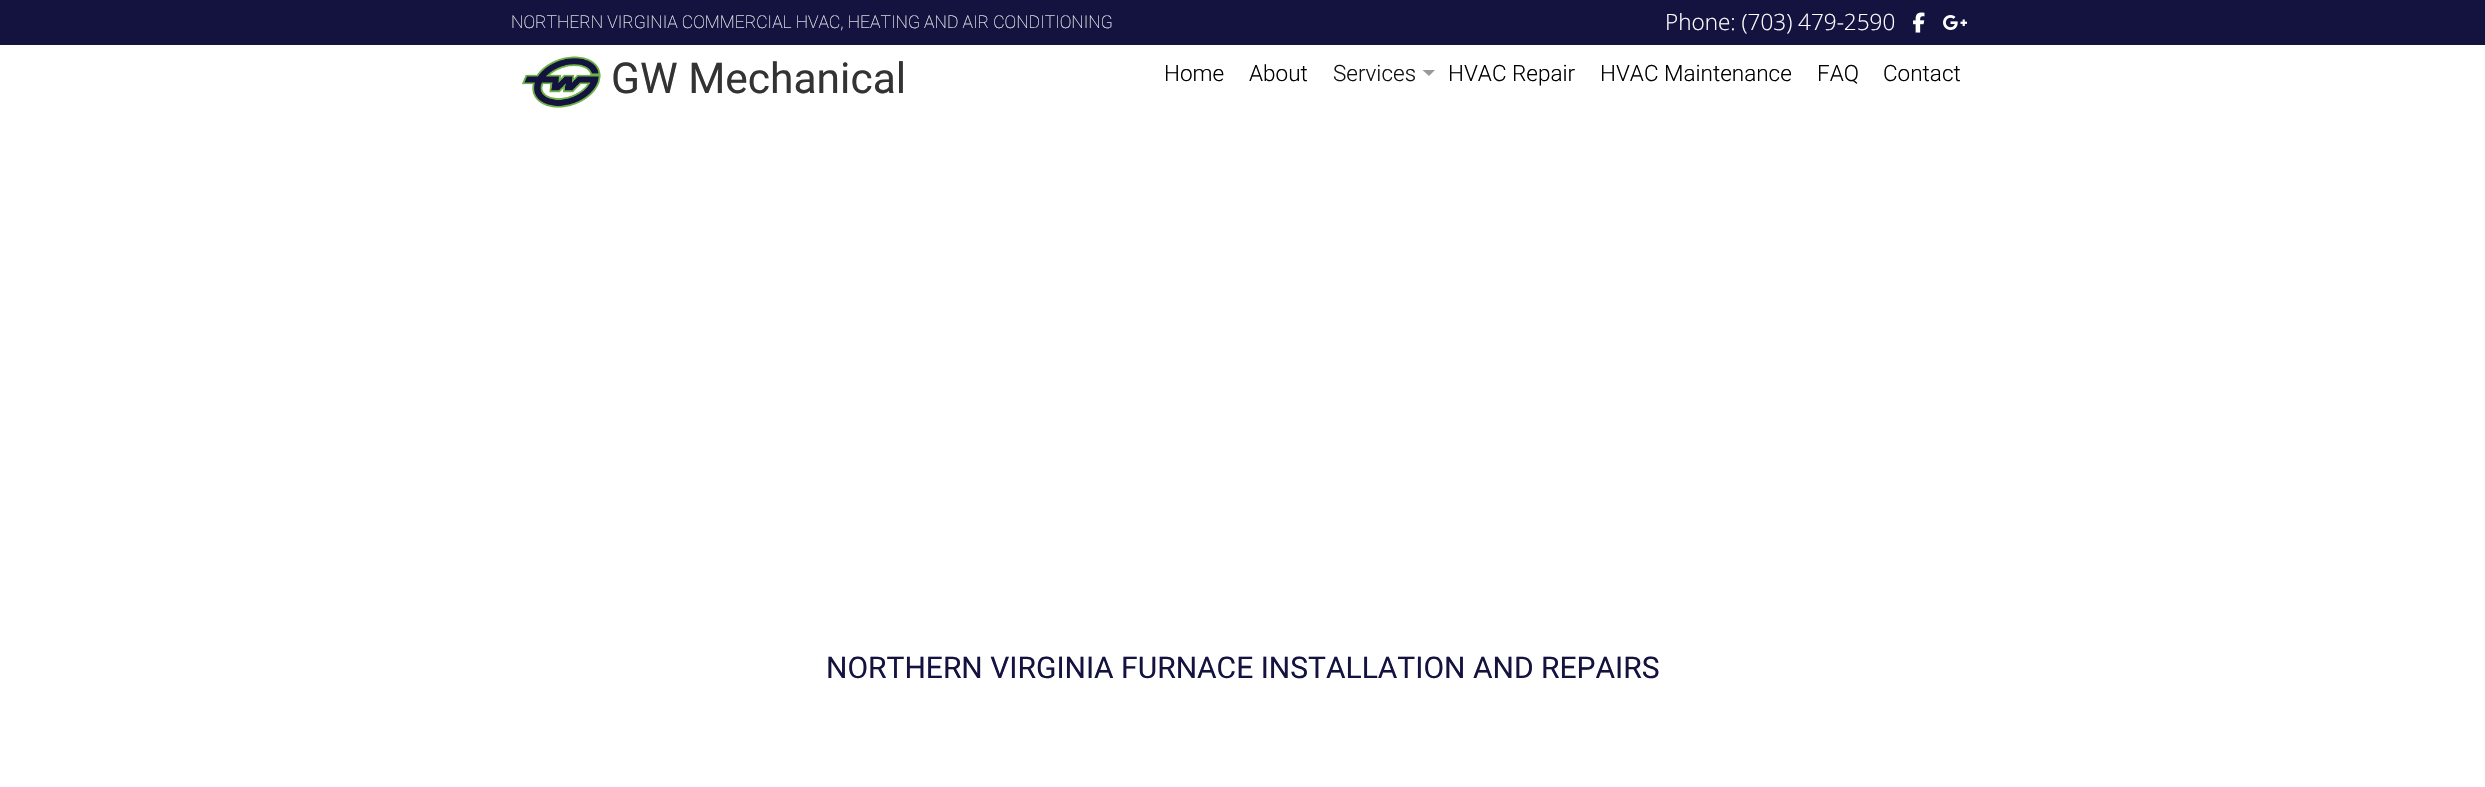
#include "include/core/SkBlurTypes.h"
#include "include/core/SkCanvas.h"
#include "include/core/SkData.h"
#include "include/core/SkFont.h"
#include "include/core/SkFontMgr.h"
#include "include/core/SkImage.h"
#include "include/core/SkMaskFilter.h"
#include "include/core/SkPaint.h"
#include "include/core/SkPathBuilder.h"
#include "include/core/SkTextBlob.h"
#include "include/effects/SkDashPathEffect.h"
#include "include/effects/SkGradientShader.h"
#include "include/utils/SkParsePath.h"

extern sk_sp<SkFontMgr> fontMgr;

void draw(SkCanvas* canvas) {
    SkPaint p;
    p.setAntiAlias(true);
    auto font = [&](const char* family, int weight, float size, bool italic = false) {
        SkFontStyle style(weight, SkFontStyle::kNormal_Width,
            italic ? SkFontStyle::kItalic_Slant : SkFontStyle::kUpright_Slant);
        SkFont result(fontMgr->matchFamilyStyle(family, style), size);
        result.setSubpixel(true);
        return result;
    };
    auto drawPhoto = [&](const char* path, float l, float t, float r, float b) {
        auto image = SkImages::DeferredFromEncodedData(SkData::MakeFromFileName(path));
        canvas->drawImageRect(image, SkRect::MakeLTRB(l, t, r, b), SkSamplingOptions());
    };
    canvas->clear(0xFFFFFFFF);
    p.setColor(0xFF14133F);
    canvas->drawRect(SkRect::MakeLTRB(0, 0, 2485, 45), p);
    auto font1 = font("Roboto", 100, 17.5f);
    p.setColor(0xFFFFFFFF);
    canvas->drawString("NORTHERN VIRGINIA COMMERCIAL HVAC, HEATING AND AIR CONDITIONING", 511, 28, font1, p);
    auto font2 = font("Open Sans", 300, 22.5f);
    canvas->drawString("Phone: (703) 479-2590", 1665, 30, font2, p);
    drawPhoto("media/1.png", 1913, 12, 1925, 33);
    drawPhoto("media/2.png", 1943, 15, 1967, 30);
    drawPhoto("media/3.png", 522, 56, 601, 108);
    auto font3 = font("Roboto", 400, 42.5f);
    p.setColor(0xFF333333);
    canvas->drawString("GW Mechanical", 611, 93, font3, p);
    auto font4 = font("Roboto", 300, 22.5f);
    p.setColor(0xFF000000);
    canvas->drawString("Home", 1164, 81, font4, p);
    canvas->drawString("About", 1249, 81, font4, p);
    p.setColor(0xFF111111);
    canvas->drawString("Services", 1333, 81, font4, p);
    p.setColor(0xFF999999);
    canvas->drawPath(SkPathBuilder().moveTo(1422.5f, 70).lineTo(1435, 70).lineTo(1429, 76).close().detach(), p);
    p.setColor(0xFF000000);
    {
        const struct { const char* s; float x, y; } items[] = {
            {"HVAC Repair", 1448, 81},
            {"HVAC Maintenance", 1600, 81},
            {"FAQ", 1817, 81},
            {"Contact", 1883, 81},
        };
        for (auto [s, x, y] : items) {
            canvas->drawString(s, x, y, font4, p);
        }
    }
    auto font5 = font("Roboto", 400, 30);
    p.setColor(0xFF14133F);
    canvas->drawString("NORTHERN VIRGINIA FURNACE INSTALLATION AND REPAIRS", 826, 678, font5, p);
}
